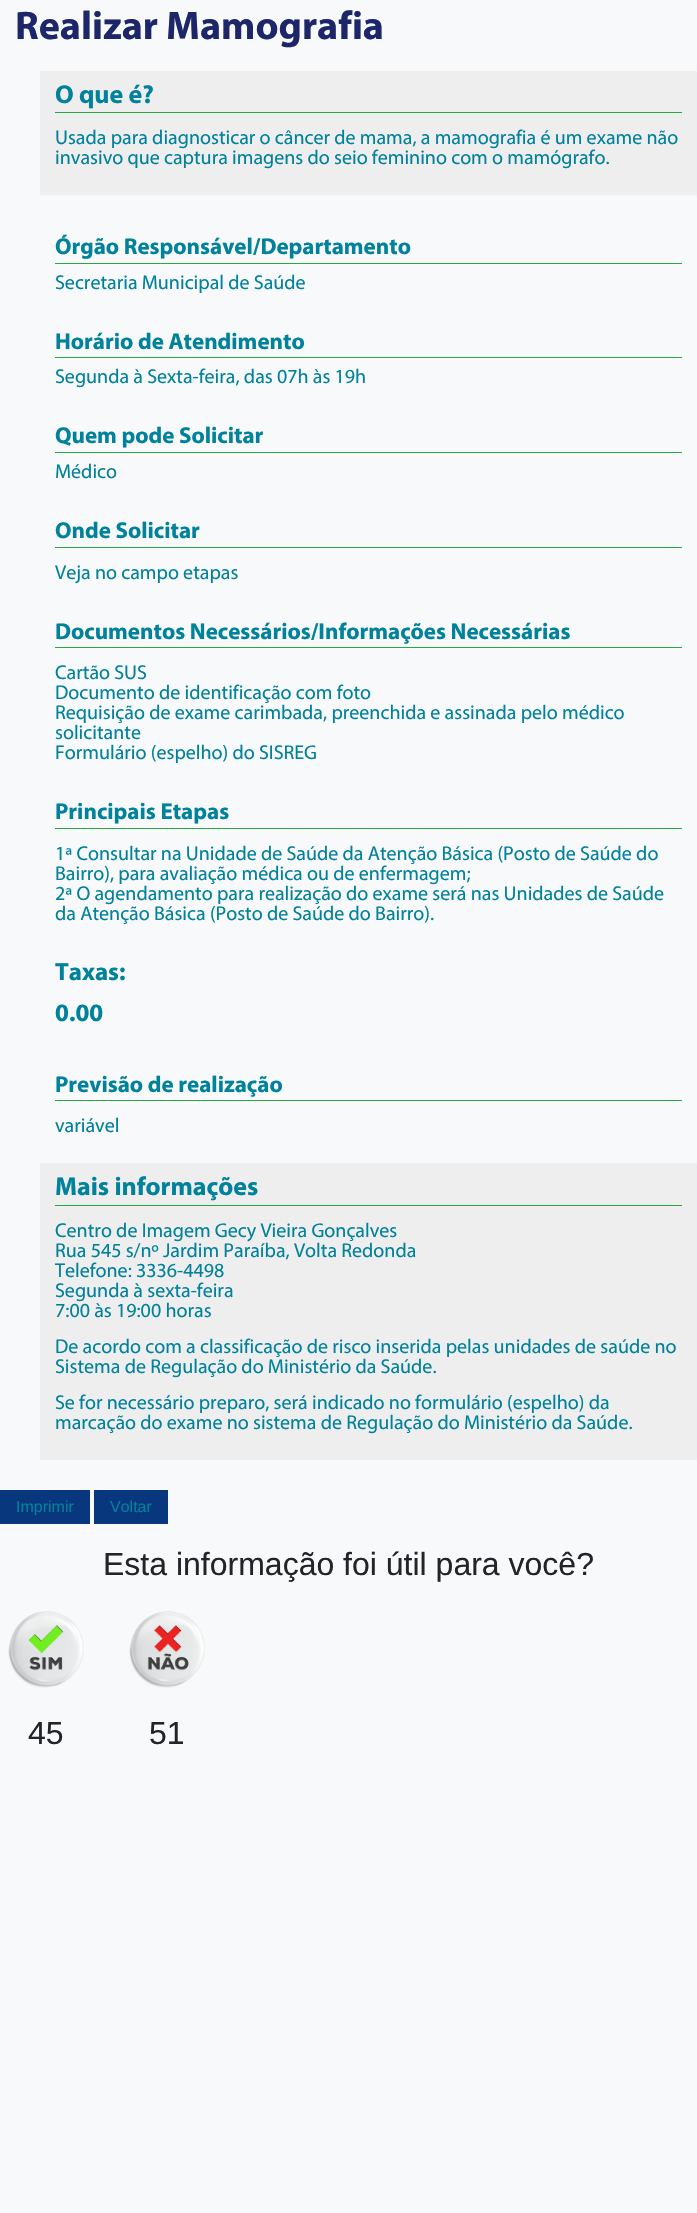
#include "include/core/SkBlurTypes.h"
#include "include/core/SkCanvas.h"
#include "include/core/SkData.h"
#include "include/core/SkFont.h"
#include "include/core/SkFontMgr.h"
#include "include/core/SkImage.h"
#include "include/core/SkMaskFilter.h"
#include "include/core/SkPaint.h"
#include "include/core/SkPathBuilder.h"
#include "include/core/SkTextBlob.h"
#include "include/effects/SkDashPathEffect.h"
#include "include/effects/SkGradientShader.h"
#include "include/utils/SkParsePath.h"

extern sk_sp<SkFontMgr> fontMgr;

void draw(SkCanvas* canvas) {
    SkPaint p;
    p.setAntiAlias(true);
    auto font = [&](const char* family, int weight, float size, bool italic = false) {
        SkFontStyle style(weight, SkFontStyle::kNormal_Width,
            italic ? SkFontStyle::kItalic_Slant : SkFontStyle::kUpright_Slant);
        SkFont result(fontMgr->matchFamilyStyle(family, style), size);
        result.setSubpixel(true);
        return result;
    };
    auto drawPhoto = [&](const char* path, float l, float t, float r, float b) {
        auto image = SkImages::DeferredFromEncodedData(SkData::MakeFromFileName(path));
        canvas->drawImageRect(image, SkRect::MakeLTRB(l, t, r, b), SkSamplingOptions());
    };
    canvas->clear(0xFFF8F9FA);
    auto font1 = font("Myriad", 700, 40);
    p.setColor(0xFF1E266A);
    canvas->drawString("Realizar Mamografia", 15, 39, font1, p);
    p.setColor(0xFFEEEEEE);
    canvas->drawRect(SkRect::MakeLTRB(40, 71, 697, 195), p);
    p.setColor(0xFF28A745);
    canvas->drawRect(SkRect::MakeLTRB(55, 112, 682, 113), p);
    auto font2 = font("Myriad", 700, 26);
    p.setColor(0xFF00819C);
    canvas->drawString("O que é?", 55, 103, font2, p);
    auto font3 = font("Myriad", 400, 20);
    canvas->drawString("Usada para diagnosticar o câncer de mama, a mamografia é um exame não", 55, 144, font3, p);
    canvas->drawString("invasivo que captura imagens do seio feminino com o mamógrafo.", 55, 164, font3, p);
    p.setColor(0xFF28A745);
    canvas->drawRect(SkRect::MakeLTRB(55, 263, 682, 264), p);
    auto font4 = font("Myriad", 700, 23);
    p.setColor(0xFF00819C);
    canvas->drawString("Órgão Responsável/Departamento", 55, 254, font4, p);
    canvas->drawString("Secretaria Municipal de Saúde", 55, 289, font3, p);
    p.setColor(0xFF28A745);
    canvas->drawRect(SkRect::MakeLTRB(55, 357, 682, 358), p);
    p.setColor(0xFF00819C);
    canvas->drawString("Horário de Atendimento", 55, 349, font4, p);
    canvas->drawString("Segunda à Sexta-feira, das 07h às 19h", 55, 383, font3, p);
    p.setColor(0xFF28A745);
    canvas->drawRect(SkRect::MakeLTRB(55, 452, 682, 453), p);
    p.setColor(0xFF00819C);
    canvas->drawString("Quem pode Solicitar", 55, 443, font4, p);
    canvas->drawString("Médico", 55, 478, font3, p);
    p.setColor(0xFF28A745);
    canvas->drawRect(SkRect::MakeLTRB(55, 547, 682, 548), p);
    p.setColor(0xFF00819C);
    canvas->drawString("Onde Solicitar", 55, 538, font4, p);
    canvas->drawString("Veja no campo etapas", 55, 579, font3, p);
    p.setColor(0xFF28A745);
    canvas->drawRect(SkRect::MakeLTRB(55, 647, 682, 648), p);
    p.setColor(0xFF00819C);
    canvas->drawString("Documentos Necessários/Informações Necessárias", 55, 639, font4, p);
    {
        const struct { const char* s; float x, y; } items[] = {
            {"Cartão SUS", 55, 679},
            {"Documento de identificação com foto", 55, 699},
            {"Requisição de exame carimbada, preenchida e assinada pelo médico", 55, 719},
            {"solicitante", 55, 739},
            {"Formulário (espelho) do SISREG", 55, 759},
        };
        for (auto [s, x, y] : items) {
            canvas->drawString(s, x, y, font3, p);
        }
    }
    p.setColor(0xFF28A745);
    canvas->drawRect(SkRect::MakeLTRB(55, 828, 682, 829), p);
    p.setColor(0xFF00819C);
    canvas->drawString("Principais Etapas", 55, 819, font4, p);
    {
        const struct { const char* s; float x, y; } items[] = {
            {"1ª Consultar na Unidade de Saúde da Atenção Básica (Posto de Saúde do", 55, 860},
            {"Bairro), para avaliação médica ou de enfermagem;", 55, 880},
            {"2ª O agendamento para realização do exame será nas Unidades de Saúde", 55, 900},
            {"da Atenção Básica (Posto de Saúde do Bairro).", 55, 920},
        };
        for (auto [s, x, y] : items) {
            canvas->drawString(s, x, y, font3, p);
        }
    }
    auto font5 = font("Myriad", 700, 25);
    canvas->drawString("Taxas:", 55, 980, font5, p);
    canvas->drawString("0.00", 55, 1021, font5, p);
    p.setColor(0xFF28A745);
    canvas->drawRect(SkRect::MakeLTRB(55, 1100, 682, 1101), p);
    p.setColor(0xFF00819C);
    canvas->drawString("Previsão de realização", 55, 1092, font4, p);
    canvas->drawString("variável", 55, 1132, font3, p);
    p.setColor(0xFFEEEEEE);
    canvas->drawRect(SkRect::MakeLTRB(40, 1163, 697, 1460), p);
    p.setColor(0xFF28A745);
    canvas->drawRect(SkRect::MakeLTRB(55, 1205, 682, 1206), p);
    p.setColor(0xFF00819C);
    canvas->drawString("Mais informações", 55, 1195, font2, p);
    {
        const struct { const char* s; float x, y; } items[] = {
            {"Centro de Imagem Gecy Vieira Gonçalves", 55, 1237},
            {"Rua 545 s/nº Jardim Paraíba, Volta Redonda", 55, 1257},
            {"Telefone: 3336-4498", 55, 1277},
            {"Segunda à sexta-feira", 55, 1297},
            {"7:00 às 19:00 horas", 55, 1317},
            {"De acordo com a classificação de risco inserida pelas unidades de saúde no", 55, 1353},
            {"Sistema de Regulação do Ministério da Saúde.", 55, 1373},
            {"Se for necessário preparo, será indicado no formulário (espelho) da", 55, 1409},
            {"marcação do exame no sistema de Regulação do Ministério da Saúde.", 55, 1429},
        };
        for (auto [s, x, y] : items) {
            canvas->drawString(s, x, y, font3, p);
        }
    }
    p.setColor(0xFF09377E);
    canvas->drawRect(SkRect::MakeLTRB(0, 1490, 90, 1524), p);
    auto font6 = font("Liberation Sans", 400, 16);
    p.setColor(0xFF00819C);
    canvas->drawString("Imprimir", 16, 1512, font6, p);
    p.setColor(0xFF09377E);
    canvas->drawRect(SkRect::MakeLTRB(94, 1490, 168, 1524), p);
    p.setColor(0xFF00819C);
    canvas->drawString("Voltar", 110, 1512, font6, p);
    auto font7 = font("Liberation Sans", 400, 32);
    p.setColor(0xFF212529);
    canvas->drawString("Esta informação foi útil para você?", 103, 1575, font7, p);
    drawPhoto("media/1.png", 8, 1611, 84, 1688);
    drawPhoto("media/2.png", 129, 1611, 205, 1688);
    canvas->drawString("45", 28, 1744, font7, p);
    canvas->drawString("51", 149, 1744, font7, p);
}
